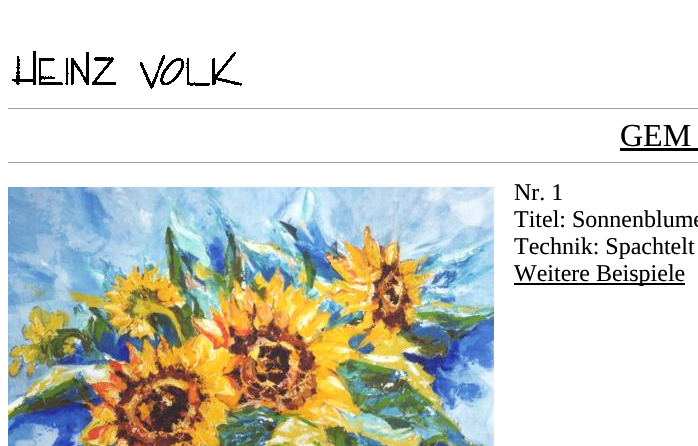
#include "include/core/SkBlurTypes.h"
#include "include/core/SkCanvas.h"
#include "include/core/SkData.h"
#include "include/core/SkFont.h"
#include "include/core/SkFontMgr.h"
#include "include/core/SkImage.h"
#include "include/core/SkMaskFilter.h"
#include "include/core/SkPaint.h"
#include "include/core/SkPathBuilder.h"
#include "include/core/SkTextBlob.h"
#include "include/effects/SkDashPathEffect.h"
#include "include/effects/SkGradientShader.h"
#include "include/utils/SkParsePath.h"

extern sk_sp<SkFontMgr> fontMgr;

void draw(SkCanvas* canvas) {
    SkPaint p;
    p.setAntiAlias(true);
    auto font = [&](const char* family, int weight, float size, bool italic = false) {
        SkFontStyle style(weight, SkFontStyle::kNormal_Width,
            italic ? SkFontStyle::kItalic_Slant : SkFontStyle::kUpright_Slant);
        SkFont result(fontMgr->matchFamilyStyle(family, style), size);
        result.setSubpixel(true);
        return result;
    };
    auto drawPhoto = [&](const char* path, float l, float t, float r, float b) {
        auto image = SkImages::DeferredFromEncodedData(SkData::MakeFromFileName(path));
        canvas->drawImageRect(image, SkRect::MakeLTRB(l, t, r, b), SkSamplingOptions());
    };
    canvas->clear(0xFFFFFFFF);
    drawPhoto("media/1.png", 12, 51, 242, 89);
    p.setColor(0xFF9F9F9F);
    canvas->drawRect(SkRect::MakeLTRB(8, 108, 698, 109), p);
    auto font1 = font("Liberation Serif", 400, 32);
    p.setColor(0xFF000000);
    canvas->drawString("GEM", 620, 146, font1, p);
    canvas->drawRect(SkRect::MakeLTRB(620, 148, 698, 151), p);
    p.setColor(0xFF9F9F9F);
    canvas->drawRect(SkRect::MakeLTRB(8, 162, 698, 163), p);
    drawPhoto("media/2.png", 8, 187, 494, 446);
    auto font2 = font("Liberation Serif", 400, 24);
    p.setColor(0xFF000000);
    {
        const struct { const char* s; float x, y; } items[] = {
            {"Nr. 1", 514, 200},
            {"Titel: Sonnenblume", 514, 227},
            {"Technik: Spachtelt", 514, 254},
        };
        for (auto [s, x, y] : items) {
            canvas->drawString(s, x, y, font2, p);
        }
    }
    canvas->drawRect(SkRect::MakeLTRB(514, 283, 685, 285), p);
    canvas->drawString("Weitere Beispiele", 514, 281, font2, p);
}
